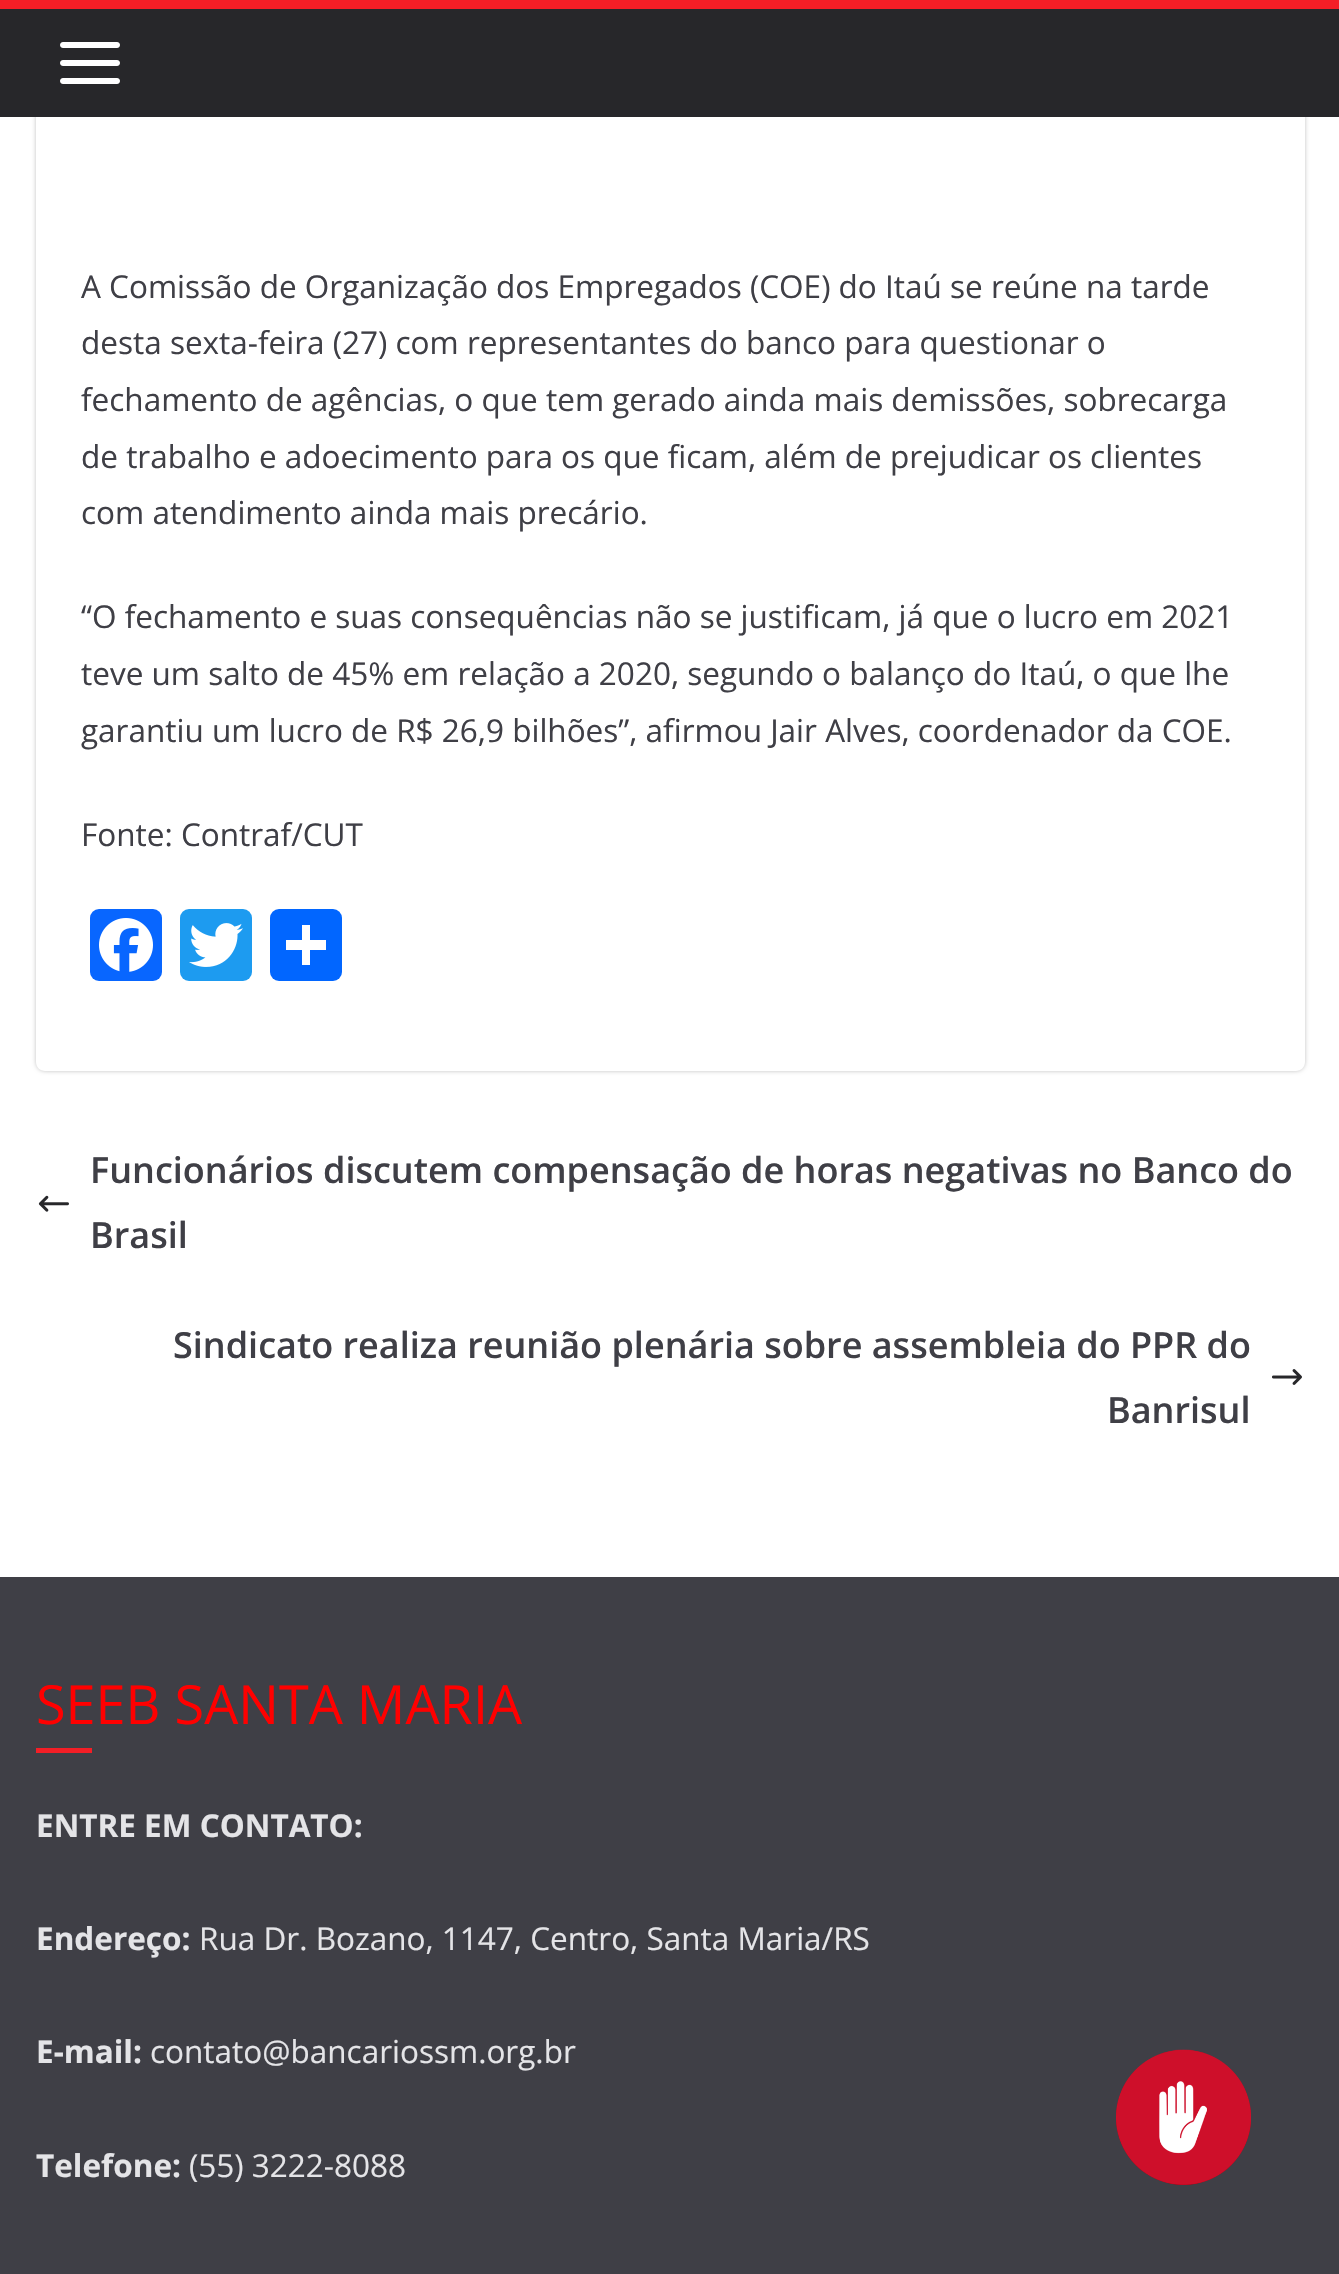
#include "include/core/SkBlurTypes.h"
#include "include/core/SkCanvas.h"
#include "include/core/SkData.h"
#include "include/core/SkFont.h"
#include "include/core/SkFontMgr.h"
#include "include/core/SkImage.h"
#include "include/core/SkMaskFilter.h"
#include "include/core/SkPaint.h"
#include "include/core/SkPathBuilder.h"
#include "include/core/SkTextBlob.h"
#include "include/effects/SkDashPathEffect.h"
#include "include/effects/SkGradientShader.h"
#include "include/utils/SkParsePath.h"

extern sk_sp<SkFontMgr> fontMgr;

void draw(SkCanvas* canvas) {
    SkPaint p;
    p.setAntiAlias(true);
    auto font = [&](const char* family, int weight, float size, bool italic = false) {
        SkFontStyle style(weight, SkFontStyle::kNormal_Width,
            italic ? SkFontStyle::kItalic_Slant : SkFontStyle::kUpright_Slant);
        SkFont result(fontMgr->matchFamilyStyle(family, style), size);
        result.setSubpixel(true);
        return result;
    };
    auto drawPhoto = [&](const char* path, float l, float t, float r, float b) {
        auto image = SkImages::DeferredFromEncodedData(SkData::MakeFromFileName(path));
        canvas->drawImageRect(image, SkRect::MakeLTRB(l, t, r, b), SkSamplingOptions());
    };
    canvas->clear(0xFFFFFFFF);
    canvas->save();
    canvas->clipPath(SkPathBuilder(SkPathFillType::kEvenOdd).moveTo(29, 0).lineTo(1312, 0).lineTo(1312, 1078).lineTo(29, 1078).close().moveTo(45, -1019).lineTo(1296, -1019).cubicTo(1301, -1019, 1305, -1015, 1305, -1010).lineTo(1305, 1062).cubicTo(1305, 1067, 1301, 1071, 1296, 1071).lineTo(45, 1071).cubicTo(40, 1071, 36, 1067, 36, 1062).lineTo(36, -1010).cubicTo(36, -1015, 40, -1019, 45, -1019).close().detach(), true);
    p.setColor(0x3D000000);
    p.setMaskFilter(SkMaskFilter::MakeBlur(kNormal_SkBlurStyle, 2));
    canvas->drawRoundRect(SkRect::MakeLTRB(36, -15, 1305, 1071), 9, 9, p);
    p.setMaskFilter(nullptr);
    canvas->restore();
    p.setColor(0xFF27272A);
    canvas->drawRect(SkRect::MakeLTRB(0, 9, 1339, 117), p);
    p.setColor(0xFFF41E26);
    canvas->drawRect(SkRect::MakeLTRB(0, 0, 1339, 9), p);
    drawPhoto("media/1.png", 60, 42, 120, 84);
    auto font1 = font("Open Sans", 400, 31.5f);
    p.setColor(0xFF3F3F46);
    {
        const struct { const char* s; float x, y; } items[] = {
            {"A Comissão de Organização dos Empregados (COE) do Itaú se reúne na tarde", 81, 298},
            {"desta sexta-feira (27) com representantes do banco para questionar o", 81, 354},
            {"fechamento de agências, o que tem gerado ainda mais demissões, sobrecarga", 81, 411},
            {"de trabalho e adoecimento para os que ficam, além de prejudicar os clientes", 81, 468},
            {"com atendimento ainda mais precário.", 81, 524},
            {"“O fechamento e suas consequências não se justificam, já que o lucro em 2021", 81, 628},
            {"teve um salto de 45% em relação a 2020, segundo o balanço do Itaú, o que lhe", 81, 685},
            {"garantiu um lucro de R$ 26,9 bilhões”, afirmou Jair Alves, coordenador da COE.", 81, 742},
            {"Fonte: Contraf/CUT", 81, 846},
        };
        for (auto [s, x, y] : items) {
            canvas->drawString(s, x, y, font1, p);
        }
    }
    p.setColor(0xFF0866FF);
    canvas->drawRoundRect(SkRect::MakeLTRB(90, 909, 162, 981), 9, 9, p);
    drawPhoto("media/2.png", 99, 918, 153, 972);
    p.setColor(0xFF1D9BF0);
    canvas->drawRoundRect(SkRect::MakeLTRB(180, 909, 252, 981), 9, 9, p);
    drawPhoto("media/3.png", 189, 923, 243, 967);
    p.setColor(0xFF0166FF);
    canvas->drawRoundRect(SkRect::MakeLTRB(270, 909, 342, 981), 9, 9, p);
    p.setColor(0xFFFFFFFF);
    canvas->drawRect(SkRect::MakeLTRB(302, 925, 310, 965), p);
    canvas->drawRect(SkRect::MakeLTRB(286, 940, 326, 950), p);
    auto font2 = font("Open Sans", 600, 36);
    p.setColor(0xFF3F3F46);
    canvas->drawString("Funcionários discutem compensação de horas negativas no Banco do", 90, 1183, font2, p);
    drawPhoto("media/4.png", 38, 1195, 69, 1212);
    canvas->drawString("Brasil", 90, 1248, font2, p);
    canvas->drawString("Sindicato realiza reunião plenária sobre assembleia do PPR do", 173, 1358, font2, p);
    drawPhoto("media/5.png", 1272, 1369, 1302, 1385);
    canvas->drawString("Banrisul", 1107, 1423, font2, p);
    canvas->drawRect(SkRect::MakeLTRB(0, 1577, 1339, 2274), p);
    auto font3 = font("Open Sans", 400, 54);
    p.setColor(0xFFFF0000);
    canvas->drawString("SEEB SANTA MARIA", 36, 1724, font3, p);
    p.setColor(0xFFF41E26);
    canvas->drawRect(SkRect::MakeLTRB(36, 1748, 92, 1753), p);
    auto font4 = font("Open Sans", 700, 31.5f);
    p.setColor(0xFFE4E4E7);
    canvas->drawString("ENTRE EM CONTATO:", 36, 1837, font4, p);
    canvas->drawString("Endereço:", 36, 1950, font4, p);
    canvas->drawString("Rua Dr. Bozano, 1147, Centro, Santa Maria/RS", 199, 1950, font1, p);
    canvas->drawString("E-mail:", 36, 2063, font4, p);
    canvas->drawString("contato@bancariossm.org.br", 150, 2063, font1, p);
    canvas->drawString("Telefone:", 36, 2177, font4, p);
    canvas->drawString("(55) 3222-8088", 189, 2177, font1, p);
    p.setColor(0xFFAF0011);
    canvas->drawCircle(1183.5f, 2117.5f, 67.5f, p);
    drawPhoto("media/6.png", 1116, 2049, 1251, 2185);
}
